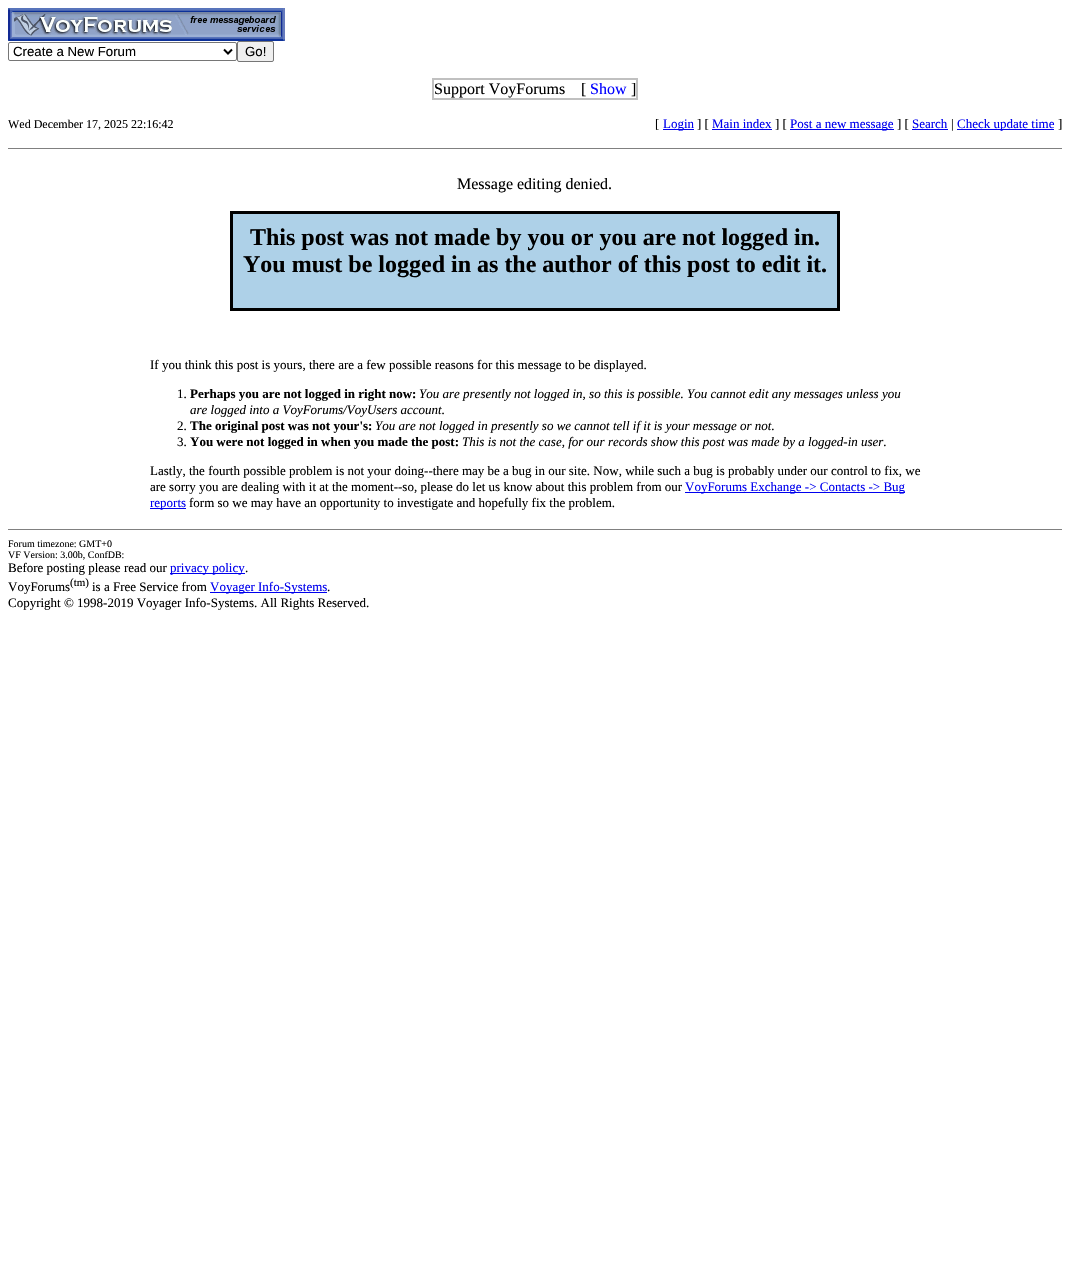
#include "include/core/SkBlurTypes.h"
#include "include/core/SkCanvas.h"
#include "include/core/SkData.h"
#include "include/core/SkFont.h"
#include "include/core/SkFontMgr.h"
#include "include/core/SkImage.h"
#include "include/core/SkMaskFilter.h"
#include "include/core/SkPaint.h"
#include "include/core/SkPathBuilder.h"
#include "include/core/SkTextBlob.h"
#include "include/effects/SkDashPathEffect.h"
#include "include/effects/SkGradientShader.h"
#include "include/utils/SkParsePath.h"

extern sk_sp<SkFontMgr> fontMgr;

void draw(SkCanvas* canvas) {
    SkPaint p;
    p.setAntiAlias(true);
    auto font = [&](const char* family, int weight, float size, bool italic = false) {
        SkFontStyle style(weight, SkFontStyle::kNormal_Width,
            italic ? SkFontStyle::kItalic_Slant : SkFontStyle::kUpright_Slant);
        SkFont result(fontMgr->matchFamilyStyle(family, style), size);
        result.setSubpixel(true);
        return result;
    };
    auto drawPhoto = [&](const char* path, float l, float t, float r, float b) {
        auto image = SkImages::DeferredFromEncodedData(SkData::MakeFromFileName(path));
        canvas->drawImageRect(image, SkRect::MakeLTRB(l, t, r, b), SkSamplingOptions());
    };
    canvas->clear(0xFFFFFFFF);
    drawPhoto("media/1.png", 8, 8, 285, 41);
    p.setStyle(SkPaint::kStroke_Style);
    p.setStrokeWidth(1);
    p.setColor(0xFF767676);
    canvas->drawRoundRect(SkRect::MakeLTRB(8.5f, 42.5f, 236.5f, 60.5f), 1.5f, 1.5f, p);
    p.setStrokeWidth(2);
    p.setColor(0xFF000000);
    canvas->drawPath(SkPathBuilder().moveTo(224, 49.5f).lineTo(228, 53.5f).lineTo(232, 49.5f).detach(), p);
    auto font1 = font("Liberation Sans", 400, 13.25f);
    p.setStyle(SkPaint::kFill_Style);
    canvas->drawString("Create a New Forum", 13, 56, font1, p);
    p.setColor(0xFFEFEFEF);
    canvas->drawRoundRect(SkRect::MakeLTRB(237.5f, 41.5f, 273.5f, 61.5f), 1.5f, 1.5f, p);
    p.setStyle(SkPaint::kStroke_Style);
    p.setStrokeWidth(1);
    p.setColor(0xFF767676);
    canvas->drawRoundRect(SkRect::MakeLTRB(237.5f, 41.5f, 273.5f, 61.5f), 1.5f, 1.5f, p);
    p.setStyle(SkPaint::kFill_Style);
    p.setColor(0xFF000000);
    canvas->drawString("Go!", 245, 56, font1, p);
    p.setStyle(SkPaint::kStroke_Style);
    p.setStrokeWidth(2);
    p.setColor(0xFFC0C0C0);
    canvas->drawRect(SkRect::MakeLTRB(433, 79, 637, 99), p);
    auto font2 = font("Liberation Serif", 400, 16);
    p.setStyle(SkPaint::kFill_Style);
    p.setColor(0xFF000000);
    canvas->drawString("Support VoyForums", 434, 94, font2, p);
    canvas->drawString("[", 581, 94, font2, p);
    p.setColor(0xFF0000FF);
    canvas->drawString("Show", 590, 94, font2, p);
    p.setColor(0xFF000000);
    canvas->drawString("]", 631, 94, font2, p);
    auto font3 = font("Liberation Serif", 400, 12);
    canvas->drawString("Wed December 17, 2025 22:16:42", 8, 128, font3, p);
    auto font4 = font("Liberation Serif", 400, 13);
    canvas->drawString("[", 655, 128, font4, p);
    p.setColor(0xFF0000EE);
    canvas->drawRect(SkRect::MakeLTRB(663, 129, 694, 130), p);
    canvas->drawString("Login", 663, 128, font4, p);
    p.setColor(0xFF000000);
    canvas->drawString("] [", 697, 128, font4, p);
    p.setColor(0xFF0000EE);
    canvas->drawString("Main index", 712, 128, font4, p);
    canvas->drawRect(SkRect::MakeLTRB(712, 129, 772, 130), p);
    p.setColor(0xFF000000);
    canvas->drawString("] [", 775, 128, font4, p);
    p.setColor(0xFF0000EE);
    canvas->drawRect(SkRect::MakeLTRB(790, 129, 894, 130), p);
    canvas->drawString("Post a new message", 790, 128, font4, p);
    p.setColor(0xFF000000);
    canvas->drawString("] [", 897, 128, font4, p);
    p.setColor(0xFF0000EE);
    canvas->drawString("Search", 912, 128, font4, p);
    canvas->drawRect(SkRect::MakeLTRB(912, 129, 948, 130), p);
    p.setColor(0xFF000000);
    canvas->drawString("|", 951, 128, font4, p);
    p.setColor(0xFF0000EE);
    canvas->drawRect(SkRect::MakeLTRB(957, 129, 1054, 130), p);
    canvas->drawString("Check update time", 957, 128, font4, p);
    p.setColor(0xFF000000);
    canvas->drawString("]", 1058, 128, font4, p);
    p.setColor(0xFF808080);
    canvas->drawRect(SkRect::MakeLTRB(8, 148, 1062, 149), p);
    p.setColor(0xFF000000);
    canvas->drawString("Message editing denied.", 457, 189, font2, p);
    canvas->drawRect(SkRect::MakeLTRB(230, 211, 840, 311), p);
    p.setColor(0xFFAED1E8);
    canvas->drawRect(SkRect::MakeLTRB(233, 214, 837, 308), p);
    auto font5 = font("Liberation Serif", 700, 24);
    p.setColor(0xFF000000);
    canvas->drawString("This post was not made by you or you are not logged in.", 250, 245, font5, p);
    canvas->drawString("You must be logged in as the author of this post to edit it.", 243, 272, font5, p);
    canvas->drawString("If you think this post is yours, there are a few possible reasons for this message to be displayed.", 150, 369, font4, p);
    canvas->drawString("1.", 177, 398, font4, p);
    auto font6 = font("Liberation Serif", 700, 13);
    canvas->drawString("Perhaps you are not logged in right now:", 190, 398, font6, p);
    auto font7 = font("Liberation Serif", 400, 13, true);
    canvas->drawString("You are presently not logged in, so this is possible. You cannot edit any messages unless you", 419, 398, font7, p);
    canvas->drawString("are logged into a VoyForums/VoyUsers account.", 190, 414, font7, p);
    canvas->drawString("2.", 177, 430, font4, p);
    canvas->drawString("The original post was not your's:", 190, 430, font6, p);
    canvas->drawString("You are not logged in presently so we cannot tell if it is your message or not.", 375, 430, font7, p);
    canvas->drawString("3.", 177, 446, font4, p);
    canvas->drawString("You were not logged in when you made the post:", 190, 446, font6, p);
    canvas->drawString("This is not the case, for our records show this post was made by a logged-in user.", 462, 446, font7, p);
    canvas->drawString("Lastly, the fourth possible problem is not your doing--there may be a bug in our site. Now, while such a bug is probably under our control to fix, we", 150, 475, font4, p);
    canvas->drawString("are sorry you are dealing with it at the moment--so, please do let us know about this problem from our", 150, 491, font4, p);
    p.setColor(0xFF0000EE);
    canvas->drawRect(SkRect::MakeLTRB(685, 492, 905, 493), p);
    canvas->drawString("VoyForums Exchange -> Contacts -> Bug", 685, 491, font4, p);
    canvas->drawRect(SkRect::MakeLTRB(150, 508, 186, 509), p);
    canvas->drawString("reports", 150, 507, font4, p);
    p.setColor(0xFF000000);
    canvas->drawString("form so we may have an opportunity to investigate and hopefully fix the problem.", 189, 507, font4, p);
    p.setColor(0xFF808080);
    canvas->drawRect(SkRect::MakeLTRB(8, 529, 1062, 530), p);
    auto font8 = font("Liberation Serif", 400, 10);
    p.setColor(0xFF000000);
    canvas->drawString("Forum timezone: GMT+0", 8, 547, font8, p);
    canvas->drawString("VF Version: 3.00b, ConfDB:", 8, 558, font8, p);
    canvas->drawString("Before posting please read our", 8, 572, font4, p);
    p.setColor(0xFF0000EE);
    canvas->drawRect(SkRect::MakeLTRB(170, 573, 245, 574), p);
    canvas->drawString("privacy policy", 170, 572, font4, p);
    p.setColor(0xFF000000);
    canvas->drawString(".", 245, 572, font4, p);
    canvas->drawString("VoyForums", 8, 591, font4, p);
    auto font9 = font("Liberation Serif", 400, 11);
    canvas->drawString("(tm)", 70, 586, font9, p);
    canvas->drawString("is a Free Service from", 92, 591, font4, p);
    p.setColor(0xFF0000EE);
    canvas->drawRect(SkRect::MakeLTRB(210, 592, 327, 593), p);
    canvas->drawString("Voyager Info-Systems", 210, 591, font4, p);
    p.setColor(0xFF000000);
    canvas->drawString(".", 327, 591, font4, p);
    canvas->drawString("Copyright © 1998-2019 Voyager Info-Systems. All Rights Reserved.", 8, 607, font4, p);
}
